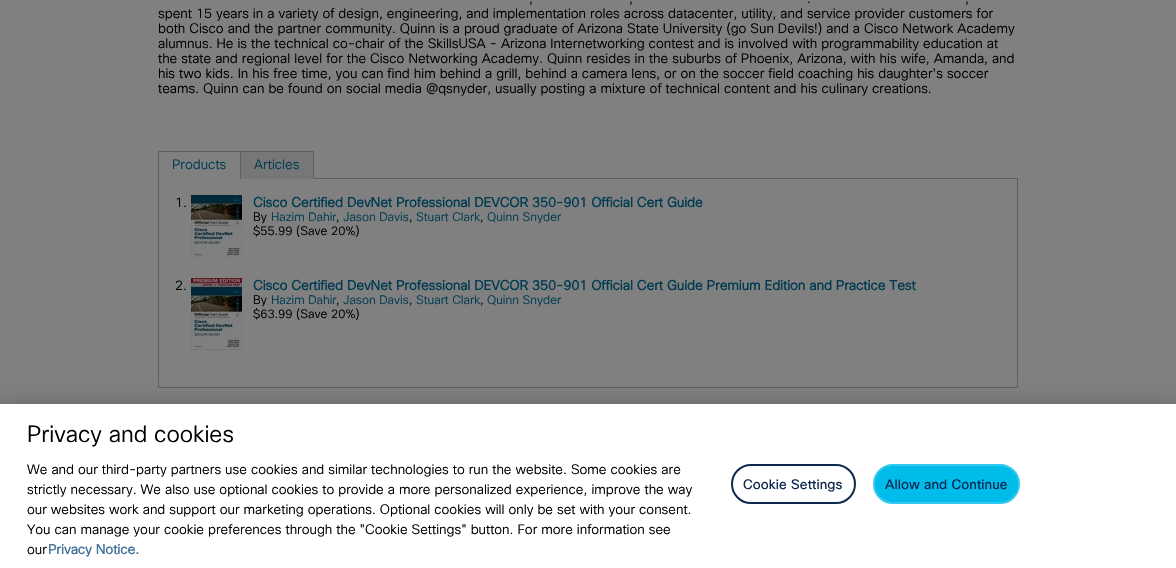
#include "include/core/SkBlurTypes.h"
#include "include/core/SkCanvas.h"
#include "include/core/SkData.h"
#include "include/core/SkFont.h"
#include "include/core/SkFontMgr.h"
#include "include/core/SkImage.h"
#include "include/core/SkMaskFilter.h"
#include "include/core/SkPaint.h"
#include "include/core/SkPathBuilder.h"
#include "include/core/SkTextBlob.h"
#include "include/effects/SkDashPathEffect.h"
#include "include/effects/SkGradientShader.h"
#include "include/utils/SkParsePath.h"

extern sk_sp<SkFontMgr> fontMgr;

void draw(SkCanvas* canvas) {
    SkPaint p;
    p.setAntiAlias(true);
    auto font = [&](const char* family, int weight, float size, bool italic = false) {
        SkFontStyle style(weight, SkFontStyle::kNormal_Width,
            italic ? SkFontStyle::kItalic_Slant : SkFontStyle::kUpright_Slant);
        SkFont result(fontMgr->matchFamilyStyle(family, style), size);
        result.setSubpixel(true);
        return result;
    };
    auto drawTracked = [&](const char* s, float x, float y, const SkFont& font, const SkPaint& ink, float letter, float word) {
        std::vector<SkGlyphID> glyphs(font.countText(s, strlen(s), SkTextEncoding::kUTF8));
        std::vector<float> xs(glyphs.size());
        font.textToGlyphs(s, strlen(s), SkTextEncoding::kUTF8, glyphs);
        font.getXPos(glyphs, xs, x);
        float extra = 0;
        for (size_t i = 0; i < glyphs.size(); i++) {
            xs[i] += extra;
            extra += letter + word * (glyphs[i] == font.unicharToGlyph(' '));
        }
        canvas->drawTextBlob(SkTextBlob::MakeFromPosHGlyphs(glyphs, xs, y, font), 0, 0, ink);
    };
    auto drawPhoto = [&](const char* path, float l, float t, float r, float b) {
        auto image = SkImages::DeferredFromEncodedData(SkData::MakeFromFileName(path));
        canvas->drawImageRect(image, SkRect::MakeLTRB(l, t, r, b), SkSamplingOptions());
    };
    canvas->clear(0xFF808080);
    auto font1 = font("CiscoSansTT", 300, 13.33f);
    p.setColor(0xFF000000);
    {
        const struct { const char* s; float x, y; } items[] = {
            {",", 529, 3},
            {",", 629, 3},
            {".", 807, 3},
            {",", 965, 3},
            {"spent 15 years in a variety of design, engineering, and implementation roles across datacenter, utility, and service provider customers for", 158, 18},
            {"both Cisco and the partner community. Quinn is a proud graduate of Arizona State University (go Sun Devils!) and a Cisco Network Academy", 158, 33},
            {"alumnus. He is the technical co-chair of the SkillsUSA - Arizona Internetworking contest and is involved with programmability education at", 158, 48},
            {"the state and regional level for the Cisco Networking Academy. Quinn resides in the suburbs of Phoenix, Arizona, with his wife, Amanda, and", 158, 63},
            {"his two kids. In his free time, you can find him behind a grill, behind a camera lens, or on the soccer field coaching his daughter's soccer", 158, 78},
            {"teams. Quinn can be found on social media @qsnyder, usually posting a mixture of technical content and his culinary creations.", 158, 93},
        };
        for (auto [s, x, y] : items) {
            canvas->drawString(s, x, y, font1, p);
        }
    }
    p.setStyle(SkPaint::kStroke_Style);
    p.setStrokeWidth(1);
    p.setColor(0xFF5F5F5F);
    canvas->drawRect(SkRect::MakeLTRB(158.5f, 178.5f, 1017.5f, 387.5f), p);
    p.setStyle(SkPaint::kFill_Style);
    {
        const struct { float l, t, r, b; SkColor color; } items[] = {
            {159, 178, 240, 179, 0xFF808080},
            {158, 151, 314, 152, 0xFF5F5F5F},
            {240, 151, 241, 179, 0xFF5F5F5F},
            {158, 151, 159, 179, 0xFF5F5F5F},
        };
        for (auto [l, t, r, b, color] : items) {
            p.setColor(color);
            canvas->drawRect(SkRect::MakeLTRB(l, t, r, b), p);
        }
    }
    p.setColor(0xFF013B51);
    canvas->drawString("Products", 172, 169, font1, p);
    p.setColor(0xFF777777);
    canvas->drawRect(SkRect::MakeLTRB(241, 152, 313, 179), p);
    p.setColor(0xFF5F5F5F);
    canvas->drawRect(SkRect::MakeLTRB(313, 151, 314, 179), p);
    p.setColor(0xFF013B51);
    canvas->drawString("Articles", 254, 169, font1, p);
    p.setColor(0xFF000000);
    canvas->drawString("1.", 175, 207, font1, p);
    drawPhoto("media/1.png", 191, 195, 242, 258);
    auto font2 = font("CiscoSansTT", 700, 13.33f);
    p.setColor(0xFF013B51);
    canvas->drawString("Cisco Certified DevNet Professional DEVCOR 350-901 Official Cert Guide", 253, 207, font2, p);
    auto font3 = font("CiscoSansTT", 300, 12);
    p.setColor(0xFF000000);
    canvas->drawString("By", 253, 221, font3, p);
    p.setColor(0xFF013B51);
    canvas->drawString("Hazim Dahir", 271, 221, font3, p);
    p.setColor(0xFF000000);
    canvas->drawString(",", 336, 221, font3, p);
    p.setColor(0xFF013B51);
    canvas->drawString("Jason Davis", 343, 221, font3, p);
    p.setColor(0xFF000000);
    canvas->drawString(",", 409, 221, font3, p);
    p.setColor(0xFF013B51);
    canvas->drawString("Stuart Clark", 416, 221, font3, p);
    p.setColor(0xFF000000);
    canvas->drawString(",", 480, 221, font3, p);
    p.setColor(0xFF013B51);
    canvas->drawString("Quinn Snyder", 487, 221, font3, p);
    p.setColor(0xFF000000);
    canvas->drawString("$55.99 (Save 20%)", 253, 235, font3, p);
    canvas->drawString("2.", 175, 290, font1, p);
    drawPhoto("media/2.png", 191, 278, 242, 350);
    p.setColor(0xFF013B51);
    canvas->drawString("Cisco Certified DevNet Professional DEVCOR 350-901 Official Cert Guide Premium Edition and Practice Test", 253, 290, font2, p);
    p.setColor(0xFF000000);
    canvas->drawString("By", 253, 304, font3, p);
    p.setColor(0xFF013B51);
    canvas->drawString("Hazim Dahir", 271, 304, font3, p);
    p.setColor(0xFF000000);
    canvas->drawString(",", 336, 304, font3, p);
    p.setColor(0xFF013B51);
    canvas->drawString("Jason Davis", 343, 304, font3, p);
    p.setColor(0xFF000000);
    canvas->drawString(",", 409, 304, font3, p);
    p.setColor(0xFF013B51);
    canvas->drawString("Stuart Clark", 416, 304, font3, p);
    p.setColor(0xFF000000);
    canvas->drawString(",", 480, 304, font3, p);
    p.setColor(0xFF013B51);
    canvas->drawString("Quinn Snyder", 487, 304, font3, p);
    p.setColor(0xFF000000);
    canvas->drawString("$63.99 (Save 20%)", 253, 318, font3, p);
    p.setColor(0x33000000);
    p.setMaskFilter(SkMaskFilter::MakeBlur(kNormal_SkBlurStyle, 9));
    canvas->drawRect(SkRect::MakeLTRB(0, 404, 1176, 568), p);
    p.setMaskFilter(nullptr);
    p.setColor(0xFFFFFFFF);
    canvas->drawRect(SkRect::MakeLTRB(0, 404, 1176, 568), p);
    auto font4 = font("CiscoSansTT", 300, 22.75f);
    p.setColor(0xFF000000);
    canvas->drawString("Privacy and cookies", 27, 442, font4, p);
    {
        const struct { const char* s; float x, y; } items[] = {
            {"We and our third-party partners use cookies and similar technologies to run the website. Some cookies are", 27, 474},
            {"strictly necessary. We also use optional cookies to provide a more personalized experience, improve the way", 27, 494},
            {"our websites work and support our marketing operations. Optional cookies will only be set with your consent.", 27, 514},
            {"You can manage your cookie preferences through the \"Cookie Settings\" button. For more information see", 27, 534},
            {"our", 27, 554},
        };
        for (auto [s, x, y] : items) {
            canvas->drawString(s, x, y, font1, p);
        }
    }
    p.setColor(0xFF447099);
    canvas->drawString("Privacy Notice.", 48, 554, font2, p);
    p.setStyle(SkPaint::kStroke_Style);
    p.setStrokeWidth(2);
    p.setColor(0xFF0D274D);
    canvas->drawRoundRect(SkRect::MakeLTRB(732, 465, 855, 503), 19, 19, p);
    auto font5 = font("CiscoSansTT", 400, 13.33f);
    p.setStyle(SkPaint::kFill_Style);
    drawTracked("Cookie Settings", 743, 489, font5, p, 0.1f, 0);
    p.setColor(0xFF00BCEB);
    canvas->drawRoundRect(SkRect::MakeLTRB(874, 465, 1019, 503), 19, 19, p);
    p.setStyle(SkPaint::kStroke_Style);
    p.setColor(0xFF33C9EF);
    canvas->drawRoundRect(SkRect::MakeLTRB(874, 465, 1019, 503), 19, 19, p);
    p.setStyle(SkPaint::kFill_Style);
    p.setColor(0xFF0D274D);
    drawTracked("Allow and Continue", 885, 489, font5, p, 0.1f, 0);
}
